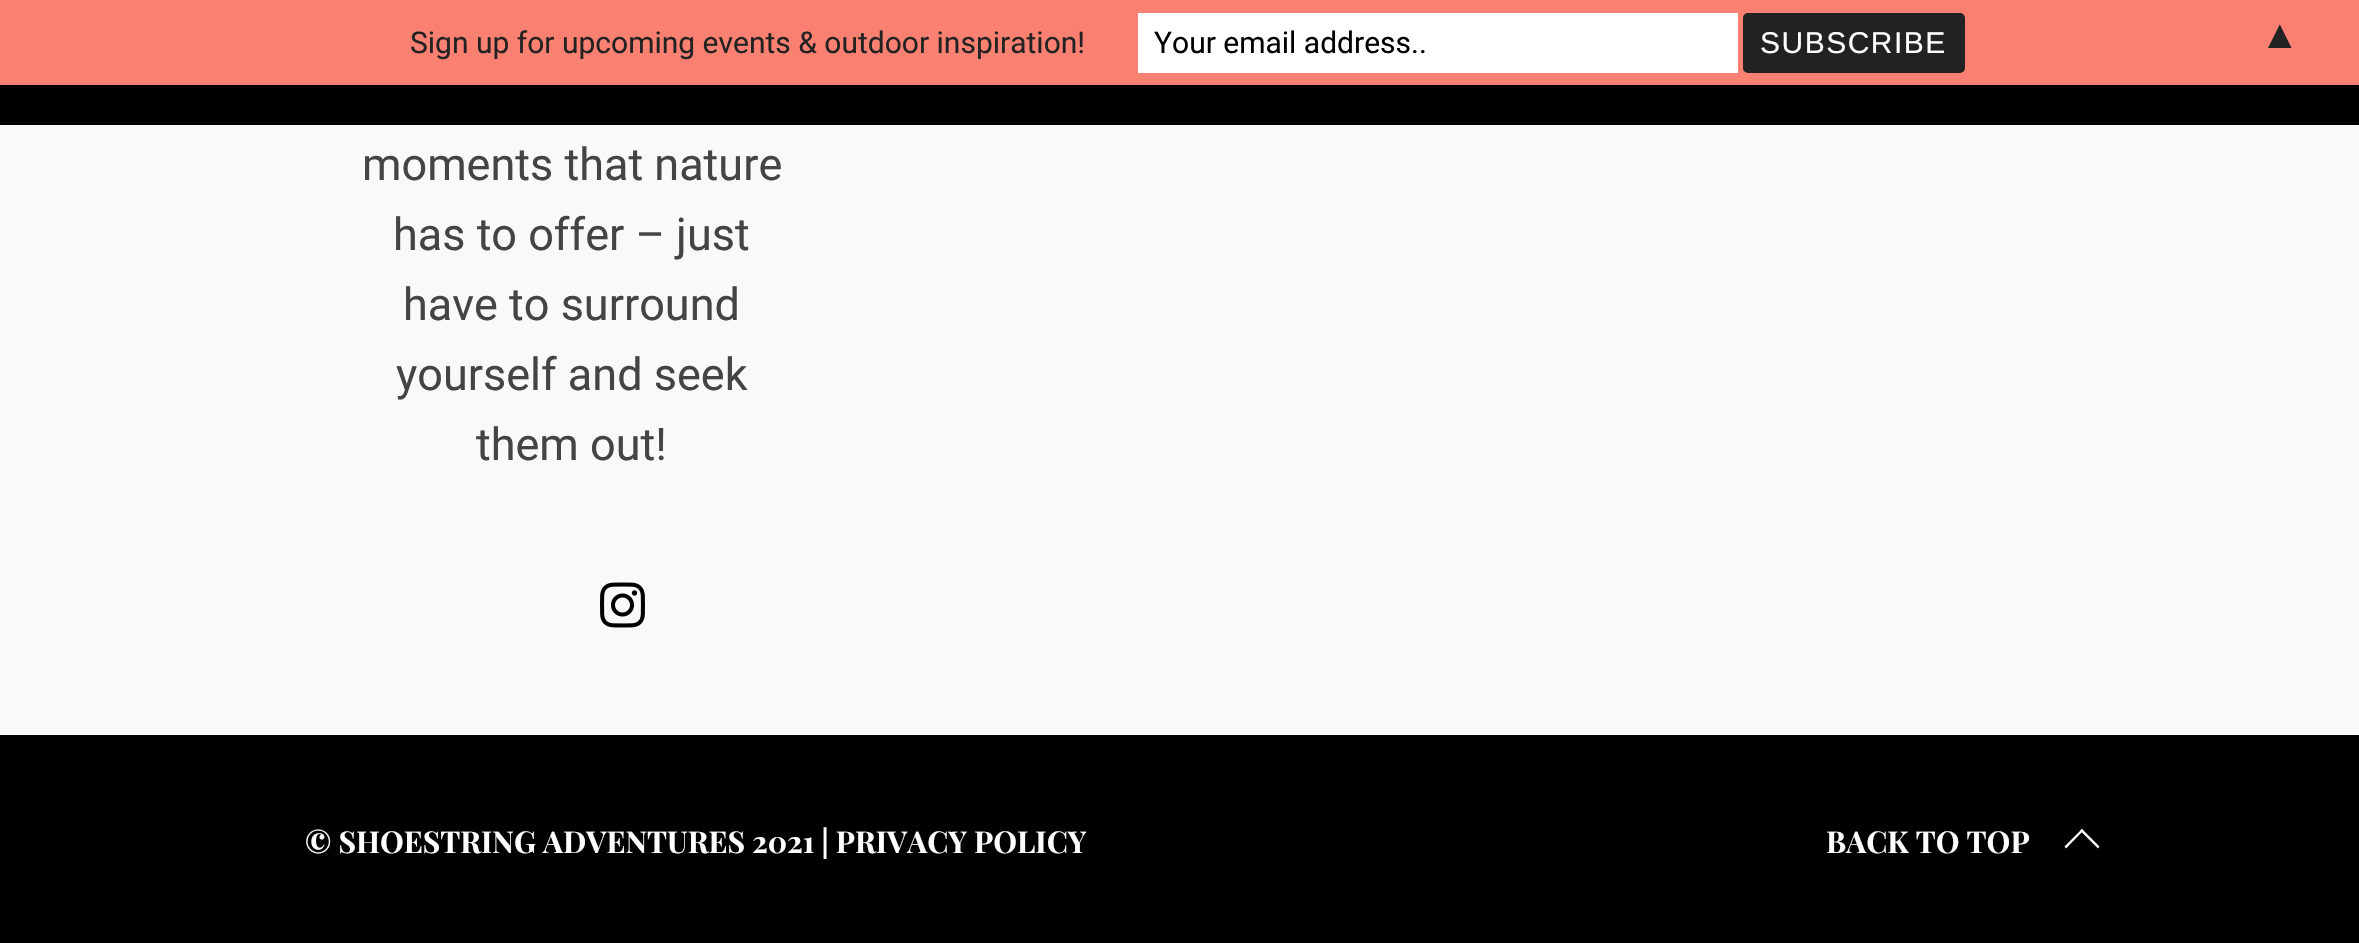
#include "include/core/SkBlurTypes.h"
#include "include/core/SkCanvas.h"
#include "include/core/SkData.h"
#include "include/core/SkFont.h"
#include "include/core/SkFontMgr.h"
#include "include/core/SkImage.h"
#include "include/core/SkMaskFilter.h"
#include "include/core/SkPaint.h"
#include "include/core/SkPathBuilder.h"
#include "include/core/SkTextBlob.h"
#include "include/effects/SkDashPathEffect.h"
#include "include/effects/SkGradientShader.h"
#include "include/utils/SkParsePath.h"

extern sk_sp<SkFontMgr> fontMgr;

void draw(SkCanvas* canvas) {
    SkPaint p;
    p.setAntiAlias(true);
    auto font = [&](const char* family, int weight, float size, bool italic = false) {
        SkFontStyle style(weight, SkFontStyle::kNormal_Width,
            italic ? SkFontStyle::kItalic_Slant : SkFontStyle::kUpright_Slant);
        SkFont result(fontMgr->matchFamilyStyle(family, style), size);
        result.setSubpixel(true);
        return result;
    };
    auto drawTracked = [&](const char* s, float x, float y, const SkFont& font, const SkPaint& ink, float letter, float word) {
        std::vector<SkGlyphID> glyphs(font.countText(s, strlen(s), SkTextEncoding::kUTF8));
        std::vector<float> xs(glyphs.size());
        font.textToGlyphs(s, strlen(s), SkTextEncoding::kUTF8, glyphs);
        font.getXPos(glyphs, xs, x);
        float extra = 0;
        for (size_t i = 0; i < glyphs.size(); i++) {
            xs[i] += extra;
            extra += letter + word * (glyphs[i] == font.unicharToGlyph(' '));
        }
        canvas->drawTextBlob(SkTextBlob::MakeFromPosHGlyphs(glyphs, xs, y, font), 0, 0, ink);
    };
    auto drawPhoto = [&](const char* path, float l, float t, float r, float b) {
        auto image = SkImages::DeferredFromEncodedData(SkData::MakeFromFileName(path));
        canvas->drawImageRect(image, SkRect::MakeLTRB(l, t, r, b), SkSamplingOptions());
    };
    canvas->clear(0xFFF9F9F9);
    p.setColor(0xFFFA8072);
    canvas->drawRect(SkRect::MakeLTRB(0, 0, 2359, 85), p);
    auto font1 = font("Roboto", 400, 30);
    p.setColor(0xFF222222);
    canvas->drawString("Sign up for upcoming events & outdoor inspiration!", 410, 53, font1, p);
    p.setColor(0xFFFFFFFF);
    canvas->drawRect(SkRect::MakeLTRB(1138, 13, 1738, 73), p);
    p.setColor(0xFF000000);
    canvas->drawString("Your email address..", 1154, 53, font1, p);
    p.setColor(0xFF222222);
    canvas->drawRoundRect(SkRect::MakeLTRB(1744.5f, 14.5f, 1963.5f, 71.5f), 3.5f, 3.5f, p);
    p.setStyle(SkPaint::kStroke_Style);
    p.setStrokeWidth(3);
    canvas->drawRoundRect(SkRect::MakeLTRB(1744.5f, 14.5f, 1963.5f, 71.5f), 3.5f, 3.5f, p);
    auto font2 = font("Liberation Sans", 400, 30);
    p.setStyle(SkPaint::kFill_Style);
    p.setColor(0xFFFFFFFF);
    drawTracked("SUBSCRIBE", 1760, 53, font2, p, 1.5f, 0);
    auto font3 = font("Liberation Serif", 400, 40);
    p.setColor(0xFF222222);
    canvas->drawString("▲", 2260, 48, font3, p);
    p.setColor(0xFF000000);
    canvas->drawRect(SkRect::MakeLTRB(0, 85, 2359, 125), p);
    auto font4 = font("Roboto", 400, 45);
    p.setColor(0xFF444444);
    {
        const struct { const char* s; float x, y; } items[] = {
            {"moments that nature", 362, 180},
            {"has to offer – just", 393, 250},
            {"have to surround", 403, 320},
            {"yourself and seek", 396, 390},
            {"them out!", 476, 460},
        };
        for (auto [s, x, y] : items) {
            canvas->drawString(s, x, y, font4, p);
        }
    }
    drawPhoto("media/1.png", 600, 582, 645, 628);
    p.setColor(0xFF000000);
    canvas->drawRect(SkRect::MakeLTRB(0, 735, 2359, 943), p);
    auto font5 = font("Playfair Display", 700, 30);
    p.setColor(0xFFFFFFFF);
    canvas->drawString("© SHOESTRING ADVENTURES 2021 | PRIVACY POLICY", 305, 853, font5, p);
    canvas->drawString("BACK TO TOP", 1826, 853, font5, p);
    canvas->drawPath(SkPathBuilder().moveTo(2064.5f, 846.5f).lineTo(2082, 829).lineTo(2083.5f, 830.5f).lineTo(2066, 848.5f).close().detach(), p);
    canvas->drawPath(SkPathBuilder().moveTo(2080, 830.5f).lineTo(2082, 829).lineTo(2099.5f, 846.5f).lineTo(2098, 848.5f).close().detach(), p);
}
